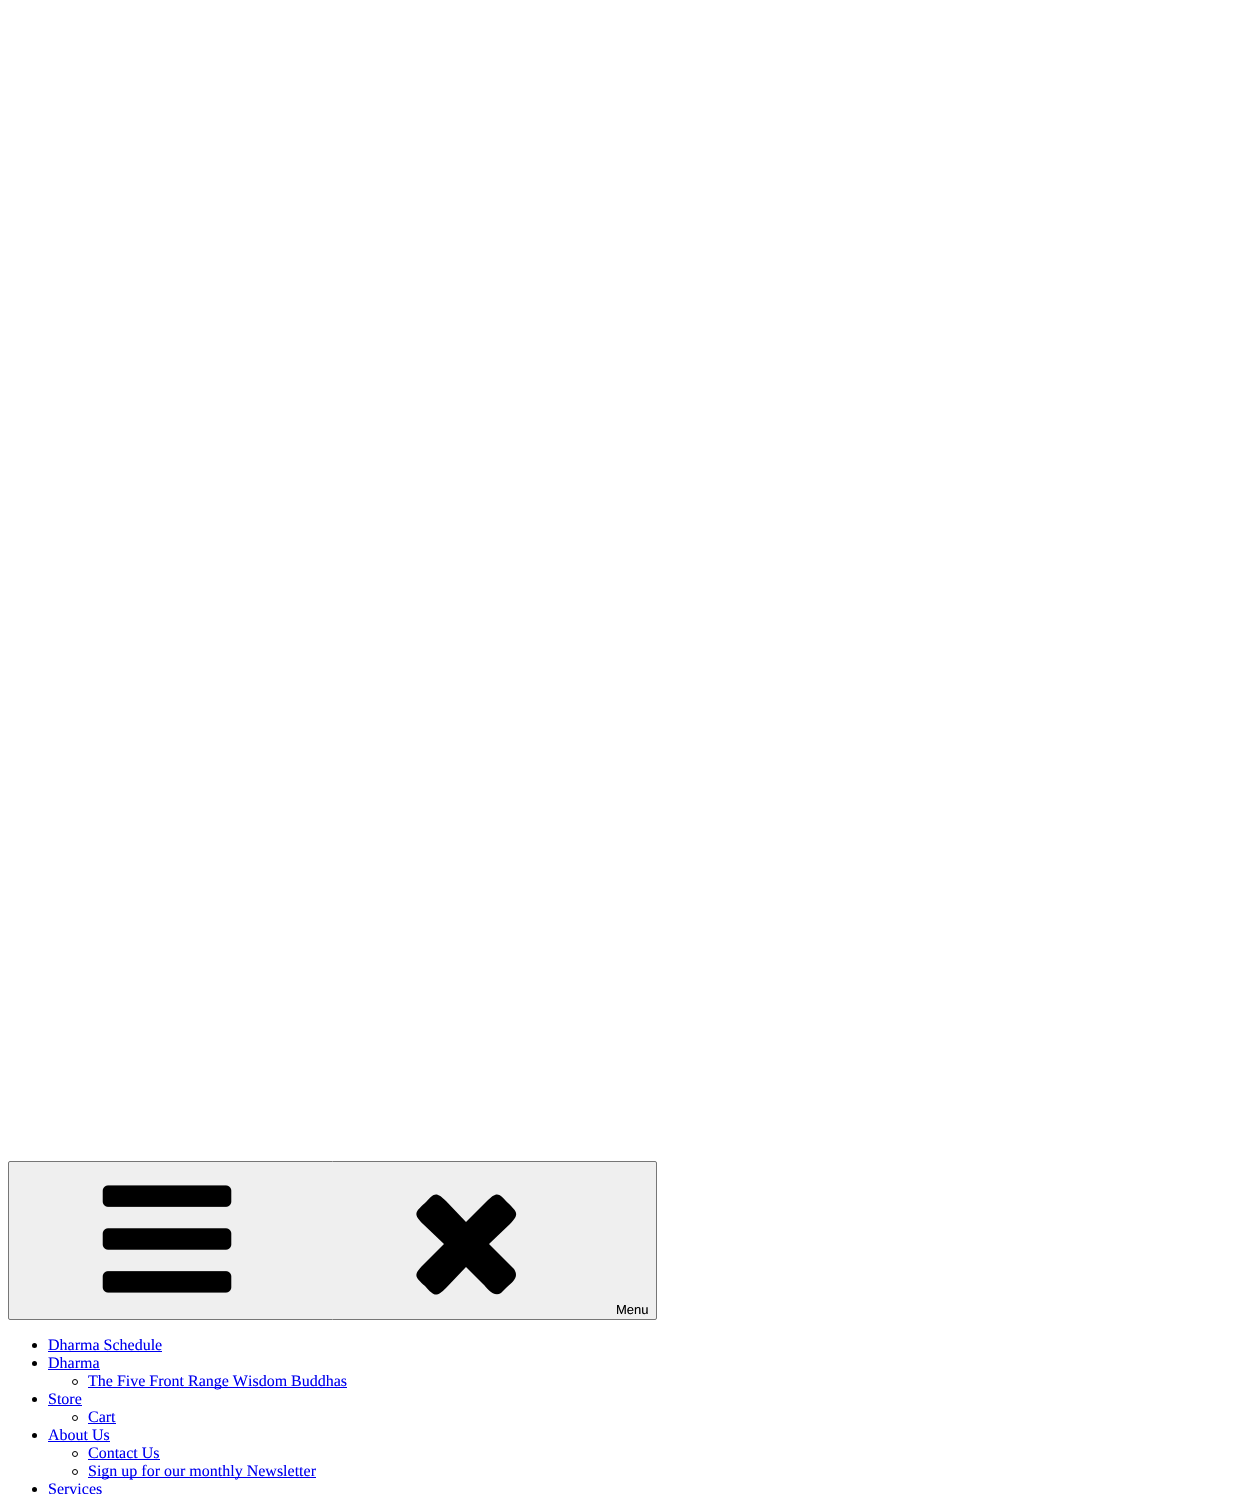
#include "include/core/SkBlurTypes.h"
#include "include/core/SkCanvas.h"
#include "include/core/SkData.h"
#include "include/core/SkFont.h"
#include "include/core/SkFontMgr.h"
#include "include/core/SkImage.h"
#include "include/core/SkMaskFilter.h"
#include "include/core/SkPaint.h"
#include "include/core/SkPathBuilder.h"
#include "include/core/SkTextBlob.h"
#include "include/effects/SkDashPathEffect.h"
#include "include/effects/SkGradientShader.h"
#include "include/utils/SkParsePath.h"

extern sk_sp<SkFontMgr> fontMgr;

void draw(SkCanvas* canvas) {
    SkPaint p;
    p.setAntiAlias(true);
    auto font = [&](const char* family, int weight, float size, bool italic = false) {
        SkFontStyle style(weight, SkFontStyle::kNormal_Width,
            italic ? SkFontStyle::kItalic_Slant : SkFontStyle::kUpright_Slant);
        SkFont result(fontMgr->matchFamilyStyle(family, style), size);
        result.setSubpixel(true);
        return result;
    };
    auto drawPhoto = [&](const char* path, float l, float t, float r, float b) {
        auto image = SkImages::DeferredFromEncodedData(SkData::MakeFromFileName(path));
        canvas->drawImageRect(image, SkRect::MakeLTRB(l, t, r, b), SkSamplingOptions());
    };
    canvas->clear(0xFFFFFFFF);
    p.setColor(0xFFEFEFEF);
    canvas->drawRoundRect(SkRect::MakeLTRB(8.5f, 1161.5f, 656.5f, 1319.5f), 1.5f, 1.5f, p);
    p.setStyle(SkPaint::kStroke_Style);
    p.setStrokeWidth(1);
    p.setColor(0xFF767676);
    canvas->drawRoundRect(SkRect::MakeLTRB(8.5f, 1161.5f, 656.5f, 1319.5f), 1.5f, 1.5f, p);
    drawPhoto("media/1.png", 102, 1185, 232, 1293);
    p.setStyle(SkPaint::kFill_Style);
    p.setColor(0xFF000000);
    canvas->drawPath(SkPathBuilder().moveTo(516, 1275).cubicTo(516, 1280, 510, 1284, 506, 1288).lineTo(501, 1293).cubicTo(494, 1298, 487, 1288, 483, 1284).lineTo(466, 1267).lineTo(446, 1288).cubicTo(436, 1298, 434, 1296, 425, 1286).cubicTo(415, 1277, 413, 1275, 423, 1265).lineTo(444, 1244).lineTo(423, 1224).cubicTo(413, 1214, 415, 1212, 425, 1203).cubicTo(434, 1193, 436, 1191, 446, 1201).lineTo(466, 1222).lineTo(487, 1201).cubicTo(497, 1191, 499, 1193, 508, 1203).cubicTo(517, 1212, 520, 1214, 510, 1224).lineTo(489, 1244).lineTo(514, 1269).cubicTo(515, 1271, 516, 1272, 516, 1275).close().detach(), p);
    auto font1 = font("Liberation Sans", 400, 13);
    canvas->drawString("Menu", 616, 1314, font1, p);
    canvas->drawCircle(34.5f, 1345.5f, 2.5f, p);
    auto font2 = font("Liberation Serif", 400, 16);
    p.setColor(0xFF0000EE);
    canvas->drawString("Dharma Schedule", 48, 1350, font2, p);
    canvas->drawRect(SkRect::MakeLTRB(48, 1351, 162, 1352), p);
    p.setColor(0xFF000000);
    canvas->drawCircle(34.5f, 1363.5f, 2.5f, p);
    p.setColor(0xFF0000EE);
    canvas->drawString("Dharma", 48, 1368, font2, p);
    canvas->drawRect(SkRect::MakeLTRB(48, 1369, 100, 1370), p);
    p.setStyle(SkPaint::kStroke_Style);
    p.setColor(0xFF000000);
    canvas->drawCircle(75, 1382, 2.5f, p);
    p.setStyle(SkPaint::kFill_Style);
    p.setColor(0xFF0000EE);
    canvas->drawRect(SkRect::MakeLTRB(88, 1387, 347, 1388), p);
    canvas->drawString("The Five Front Range Wisdom Buddhas", 88, 1386, font2, p);
    p.setColor(0xFF000000);
    canvas->drawCircle(34.5f, 1399.5f, 2.5f, p);
    p.setColor(0xFF0000EE);
    canvas->drawString("Store", 48, 1404, font2, p);
    canvas->drawRect(SkRect::MakeLTRB(48, 1405, 82, 1406), p);
    p.setStyle(SkPaint::kStroke_Style);
    p.setColor(0xFF000000);
    canvas->drawCircle(75, 1418, 2.5f, p);
    p.setStyle(SkPaint::kFill_Style);
    p.setColor(0xFF0000EE);
    canvas->drawString("Cart", 88, 1422, font2, p);
    canvas->drawRect(SkRect::MakeLTRB(88, 1423, 116, 1424), p);
    p.setColor(0xFF000000);
    canvas->drawCircle(34.5f, 1435.5f, 2.5f, p);
    p.setColor(0xFF0000EE);
    canvas->drawString("About Us", 48, 1440, font2, p);
    canvas->drawRect(SkRect::MakeLTRB(48, 1441, 110, 1442), p);
    p.setStyle(SkPaint::kStroke_Style);
    p.setColor(0xFF000000);
    canvas->drawCircle(75, 1454, 2.5f, p);
    p.setStyle(SkPaint::kFill_Style);
    p.setColor(0xFF0000EE);
    canvas->drawString("Contact Us", 88, 1458, font2, p);
    canvas->drawRect(SkRect::MakeLTRB(88, 1459, 160, 1460), p);
    p.setStyle(SkPaint::kStroke_Style);
    p.setColor(0xFF000000);
    canvas->drawCircle(75, 1472, 2.5f, p);
    p.setStyle(SkPaint::kFill_Style);
    p.setColor(0xFF0000EE);
    canvas->drawRect(SkRect::MakeLTRB(88, 1477, 316, 1478), p);
    canvas->drawString("Sign up for our monthly Newsletter", 88, 1476, font2, p);
    p.setColor(0xFF000000);
    canvas->drawCircle(34.5f, 1489.5f, 2.5f, p);
    p.setColor(0xFF0000EE);
    canvas->drawString("Services", 48, 1494, font2, p);
}
